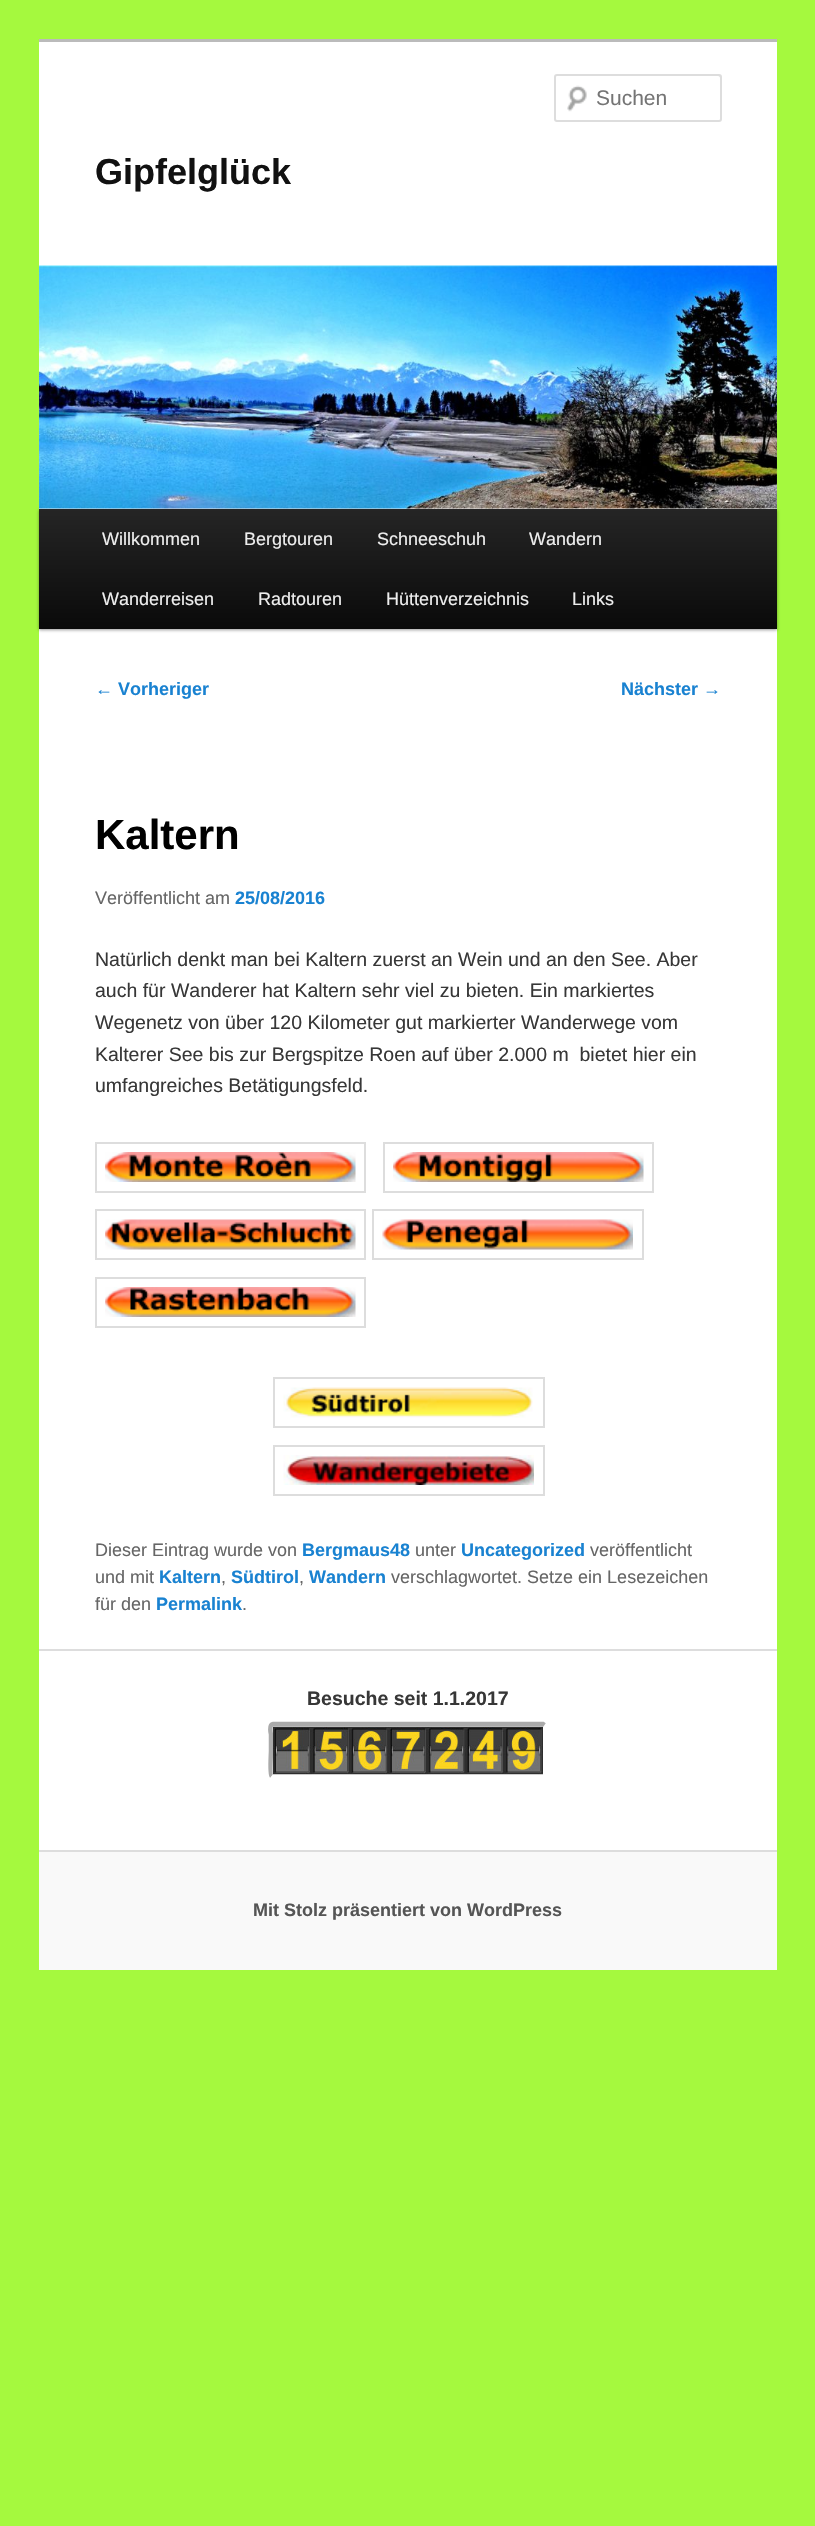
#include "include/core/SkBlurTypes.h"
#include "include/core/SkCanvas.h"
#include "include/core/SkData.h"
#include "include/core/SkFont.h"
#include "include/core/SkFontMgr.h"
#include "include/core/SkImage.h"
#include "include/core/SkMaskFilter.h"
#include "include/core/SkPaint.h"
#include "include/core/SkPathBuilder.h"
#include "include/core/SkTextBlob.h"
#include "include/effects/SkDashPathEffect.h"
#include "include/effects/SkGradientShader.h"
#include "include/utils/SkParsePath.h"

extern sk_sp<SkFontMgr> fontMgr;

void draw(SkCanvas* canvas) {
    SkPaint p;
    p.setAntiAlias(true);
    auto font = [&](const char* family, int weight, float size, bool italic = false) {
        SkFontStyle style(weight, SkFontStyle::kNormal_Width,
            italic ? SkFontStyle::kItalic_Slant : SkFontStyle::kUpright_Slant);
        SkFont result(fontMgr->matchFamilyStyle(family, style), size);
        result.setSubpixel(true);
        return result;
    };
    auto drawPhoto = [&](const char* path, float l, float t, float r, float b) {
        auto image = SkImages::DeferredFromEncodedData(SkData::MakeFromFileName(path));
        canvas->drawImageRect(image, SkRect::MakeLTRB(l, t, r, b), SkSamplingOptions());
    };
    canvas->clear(0xFFA5F93E);
    p.setColor(0xFFFFFFFF);
    canvas->drawRect(SkRect::MakeLTRB(39, 42, 777, 1850), p);
    p.setColor(0xFFBBBBBB);
    canvas->drawRect(SkRect::MakeLTRB(39, 39, 777, 42), p);
    drawPhoto("media/1.png", 567, 85, 587, 112);
    p.setColor(0xFFE6E6E6);
    canvas->drawPath(SkPathBuilder().moveTo(556, 76).lineTo(718, 76).cubicTo(719, 76, 720, 77, 720, 78).lineTo(720, 76).cubicTo(720, 76, 719, 75, 718, 75).lineTo(556, 75).cubicTo(556, 75, 555, 76, 555, 76).lineTo(555, 78).close().detach(), p);
    p.setStyle(SkPaint::kStroke_Style);
    p.setStrokeWidth(2);
    p.setColor(0xFFDDDDDD);
    canvas->drawRoundRect(SkRect::MakeLTRB(555, 75, 721, 121), 2, 2, p);
    auto font1 = font("Liberation Sans", 400, 21);
    p.setStyle(SkPaint::kFill_Style);
    p.setColor(0xFF757575);
    canvas->drawString("Suchen", 596, 105, font1, p);
    auto font2 = font("Liberation Sans", 700, 36);
    p.setColor(0xFF111111);
    canvas->drawString("Gipfelglück", 95, 184, font2, p);
    p.setColor(0x66000000);
    p.setMaskFilter(SkMaskFilter::MakeBlur(kNormal_SkBlurStyle, 1.5f));
    canvas->drawRect(SkRect::MakeLTRB(39, 510, 777, 630), p);
    p.setMaskFilter(nullptr);
    drawPhoto("media/2.png", 39, 265, 777, 509);
    {
        const SkColor colors[] = {0xFF252525, 0xFF0A0A0A};
        const float stops[] = {0, 1};
        const SkPoint ends[] = {{408, 509}, {408, 629}};
        p.setShader(SkGradientShader::MakeLinear(ends, colors, stops, 2, SkTileMode::kClamp));
        p.setAlpha(255);
    }
    canvas->drawRect(SkRect::MakeLTRB(39, 509, 777, 629), p);
    auto font3 = font("Liberation Sans", 400, 18);
    p.setShader(nullptr);
    p.setColor(0xFFEEEEEE);
    {
        const struct { const char* s; float x, y; } items[] = {
            {"Willkommen", 102, 545},
            {"Bergtouren", 244, 545},
            {"Schneeschuh", 377, 545},
            {"Wandern", 529, 545},
            {"Wanderreisen", 102, 605},
            {"Radtouren", 258, 605},
            {"Hüttenverzeichnis", 386, 605},
            {"Links", 572, 605},
        };
        for (auto [s, x, y] : items) {
            canvas->drawString(s, x, y, font3, p);
        }
    }
    p.setColor(0xFF1982D1);
    canvas->drawString("←", 95, 695, font3, p);
    auto font4 = font("Liberation Sans", 700, 18);
    canvas->drawString("Vorheriger", 118, 695, font4, p);
    canvas->drawString("Nächster", 621, 695, font4, p);
    canvas->drawString("→", 703, 695, font3, p);
    auto font5 = font("Liberation Sans", 700, 42);
    p.setColor(0xFF000000);
    canvas->drawString("Kaltern", 95, 849, font5, p);
    p.setColor(0xFF666666);
    canvas->drawString("Veröffentlicht am", 95, 904, font3, p);
    p.setColor(0xFF1982D1);
    canvas->drawString("25/08/2016", 235, 904, font4, p);
    auto font6 = font("Liberation Sans", 400, 19.5f);
    p.setColor(0xFF373737);
    {
        const struct { const char* s; float x, y; } items[] = {
            {"Natürlich denkt man bei Kaltern zuerst an Wein und an den See. Aber", 95, 966},
            {"auch für Wanderer hat Kaltern sehr viel zu bieten. Ein markiertes", 95, 997},
            {"Wegenetz von über 120 Kilometer gut markierter Wanderwege vom", 95, 1029},
            {"Kalterer See bis zur Bergspitze Roen auf über 2.000 m  bietet hier ein", 95, 1061},
            {"umfangreiches Betätigungsfeld.", 95, 1092},
        };
        for (auto [s, x, y] : items) {
            canvas->drawString(s, x, y, font6, p);
        }
    }
    p.setStyle(SkPaint::kStroke_Style);
    p.setColor(0xFFDDDDDD);
    canvas->drawRect(SkRect::MakeLTRB(96, 1143, 365, 1192), p);
    canvas->drawRect(SkRect::MakeLTRB(384, 1143, 653, 1192), p);
    drawPhoto("media/3.png", 105, 1152, 356, 1182);
    drawPhoto("media/4.png", 393, 1152, 644, 1182);
    canvas->drawRect(SkRect::MakeLTRB(96, 1210, 365, 1259), p);
    canvas->drawRect(SkRect::MakeLTRB(373, 1210, 643, 1259), p);
    drawPhoto("media/5.png", 105, 1219, 356, 1250);
    drawPhoto("media/6.png", 382, 1219, 633, 1250);
    canvas->drawRect(SkRect::MakeLTRB(96, 1278, 365, 1327), p);
    drawPhoto("media/7.png", 105, 1287, 356, 1317);
    canvas->drawRect(SkRect::MakeLTRB(274, 1378, 544, 1427), p);
    drawPhoto("media/8.png", 283, 1387, 533, 1418);
    canvas->drawRect(SkRect::MakeLTRB(274, 1446, 544, 1495), p);
    drawPhoto("media/9.png", 283, 1455, 534, 1485);
    p.setStyle(SkPaint::kFill_Style);
    p.setColor(0xFF666666);
    canvas->drawString("Dieser Eintrag wurde von", 95, 1556, font3, p);
    p.setColor(0xFF1982D1);
    canvas->drawString("Bergmaus48", 302, 1556, font4, p);
    p.setColor(0xFF666666);
    canvas->drawString("unter", 415, 1556, font3, p);
    p.setColor(0xFF1982D1);
    canvas->drawString("Uncategorized", 461, 1556, font4, p);
    p.setColor(0xFF666666);
    canvas->drawString("veröffentlicht", 590, 1556, font3, p);
    canvas->drawString("und mit", 95, 1583, font3, p);
    p.setColor(0xFF1982D1);
    canvas->drawString("Kaltern", 159, 1583, font4, p);
    p.setColor(0xFF666666);
    canvas->drawString(",", 221, 1583, font3, p);
    p.setColor(0xFF1982D1);
    canvas->drawString("Südtirol", 231, 1583, font4, p);
    p.setColor(0xFF666666);
    canvas->drawString(",", 299, 1583, font3, p);
    p.setColor(0xFF1982D1);
    canvas->drawString("Wandern", 309, 1583, font4, p);
    p.setColor(0xFF666666);
    canvas->drawString("verschlagwortet. Setze ein Lesezeichen", 391, 1583, font3, p);
    canvas->drawString("für den", 95, 1610, font3, p);
    p.setColor(0xFF1982D1);
    canvas->drawString("Permalink", 156, 1610, font4, p);
    p.setColor(0xFF666666);
    canvas->drawString(".", 242, 1610, font3, p);
    p.setColor(0xFFDDDDDD);
    canvas->drawRect(SkRect::MakeLTRB(39, 1649, 777, 1651), p);
    auto font7 = font("Liberation Sans", 700, 19.5f);
    p.setColor(0xFF373737);
    canvas->drawString("Besuche seit 1.1.2017", 307, 1705, font7, p);
    p.setStyle(SkPaint::kStroke_Style);
    p.setStrokeWidth(4.5f);
    p.setColor(0xFFAAAAAA);
    canvas->drawPath(SkPathBuilder().moveTo(271.5f, 1776).cubicTo(269.5f, 1774.5f, 271, 1754, 271, 1750.5f).lineTo(271, 1734.5f).cubicTo(271, 1734.5f, 268.5f, 1724.5f, 273, 1724).lineTo(543, 1724).lineTo(544.5f, 1725).detach(), p);
    drawPhoto("media/10.png", 273, 1726, 543, 1775);
    p.setStyle(SkPaint::kFill_Style);
    p.setColor(0xFFF9F9F9);
    canvas->drawRect(SkRect::MakeLTRB(39, 1852, 777, 1970), p);
    p.setColor(0xFFDDDDDD);
    canvas->drawRect(SkRect::MakeLTRB(39, 1850, 777, 1852), p);
    p.setColor(0xFF555555);
    canvas->drawString("Mit Stolz präsentiert von WordPress", 253, 1916, font4, p);
}
